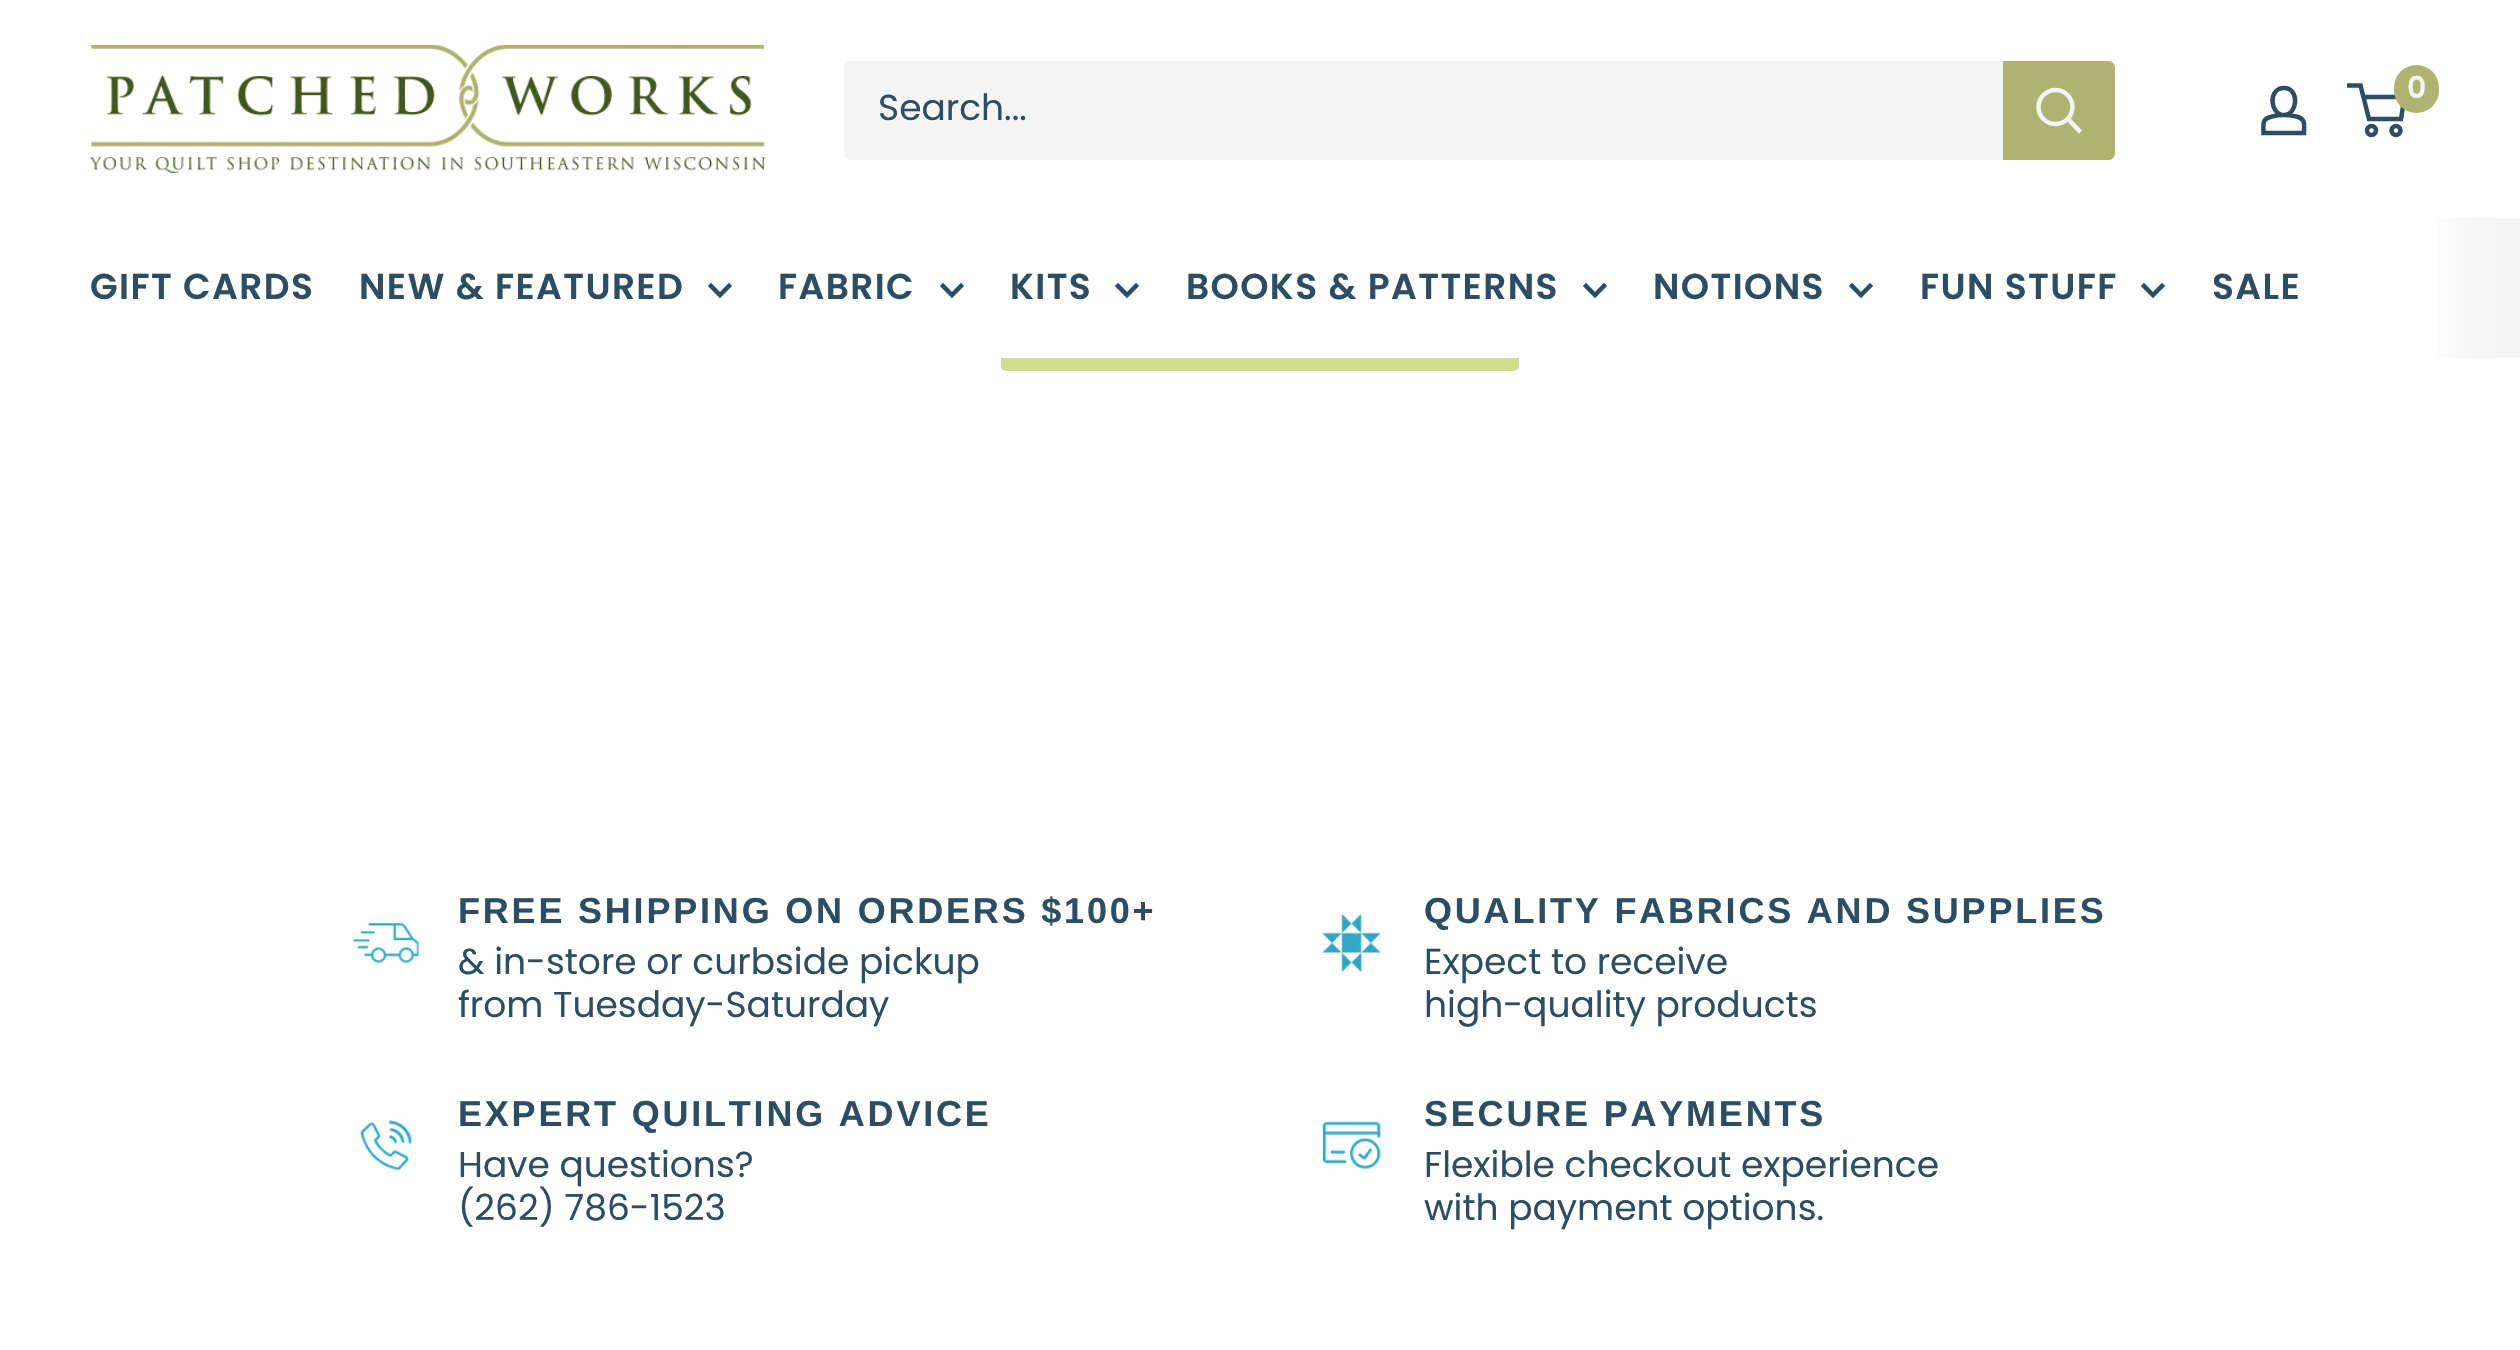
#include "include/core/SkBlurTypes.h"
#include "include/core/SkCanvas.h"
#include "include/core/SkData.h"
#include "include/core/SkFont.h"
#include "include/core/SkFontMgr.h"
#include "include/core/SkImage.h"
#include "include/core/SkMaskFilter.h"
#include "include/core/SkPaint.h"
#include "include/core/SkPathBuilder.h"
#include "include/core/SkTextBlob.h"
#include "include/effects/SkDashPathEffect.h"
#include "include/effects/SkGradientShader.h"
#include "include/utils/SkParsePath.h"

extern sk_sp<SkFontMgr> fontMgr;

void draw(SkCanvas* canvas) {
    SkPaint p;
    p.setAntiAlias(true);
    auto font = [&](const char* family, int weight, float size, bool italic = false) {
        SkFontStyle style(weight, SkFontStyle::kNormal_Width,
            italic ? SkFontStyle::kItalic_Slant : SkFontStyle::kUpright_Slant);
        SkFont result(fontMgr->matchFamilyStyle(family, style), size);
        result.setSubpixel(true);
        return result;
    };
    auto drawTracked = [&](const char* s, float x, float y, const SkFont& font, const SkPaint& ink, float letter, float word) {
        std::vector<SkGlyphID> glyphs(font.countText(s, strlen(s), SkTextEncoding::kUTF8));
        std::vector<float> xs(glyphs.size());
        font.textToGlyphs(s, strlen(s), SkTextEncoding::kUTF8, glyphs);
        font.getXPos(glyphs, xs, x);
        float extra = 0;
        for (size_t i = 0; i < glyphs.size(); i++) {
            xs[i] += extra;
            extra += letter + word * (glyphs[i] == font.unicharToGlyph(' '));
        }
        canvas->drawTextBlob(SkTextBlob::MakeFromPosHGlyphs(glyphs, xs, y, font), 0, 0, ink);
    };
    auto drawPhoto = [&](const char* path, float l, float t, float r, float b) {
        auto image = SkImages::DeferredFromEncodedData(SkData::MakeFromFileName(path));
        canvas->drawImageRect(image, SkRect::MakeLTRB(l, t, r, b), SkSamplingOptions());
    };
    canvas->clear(0xFFFFFFFF);
    drawPhoto("media/1.png", 90, 45, 765, 173);
    p.setStyle(SkPaint::kStroke_Style);
    p.setStrokeWidth(4.5f);
    p.setColor(0xFF2D4E62);
    canvas->drawPath(SkPathBuilder().moveTo(2284, 115).cubicTo(2288, 115, 2292, 115.5f, 2296.5f, 116.5f).cubicTo(2306, 119, 2304, 124.5f, 2304, 133).lineTo(2263.5f, 133).cubicTo(2263.5f, 123.5f, 2261.5f, 119, 2272, 116.5f).cubicTo(2276, 115.5f, 2280, 115, 2284, 115).close().moveTo(2284, 115).cubicTo(2270, 115, 2267.5f, 88, 2284, 88).cubicTo(2300, 88, 2297.5f, 115, 2284, 115).close().detach(), p);
    canvas->drawCircle(2371.5f, 130.5f, 4.5f, p);
    canvas->drawCircle(2396, 130.5f, 4.5f, p);
    canvas->drawPath(SkPathBuilder().moveTo(2363, 97).lineTo(2404.5f, 97).lineTo(2401, 119).lineTo(2369, 119).lineTo(2360.5f, 85.5f).lineTo(2347, 85.5f).detach(), p);
    p.setStyle(SkPaint::kFill_Style);
    p.setColor(0xFFAEB371);
    canvas->drawRoundRect(SkRect::MakeLTRB(2394, 65, 2439, 113), 22.5f, 22.5f, p);
    auto font1 = font("Poppins", 600, 30);
    p.setColor(0xFFF4F4F4);
    canvas->drawString("0", 2407, 98, font1, p);
    canvas->drawRoundRect(SkRect::MakeLTRB(844, 61, 2115, 160), 7, 7, p);
    auto font2 = font("Poppins", 400, 36);
    p.setColor(0xFF2D4E62);
    canvas->drawString("Search...", 878, 120, font2, p);
    p.setColor(0xFFAEB371);
    canvas->drawPath(SkPathBuilder().moveTo(2003, 61).lineTo(2108, 61).cubicTo(2112, 61, 2115, 64, 2115, 68).lineTo(2115, 153).cubicTo(2115, 157, 2112, 160, 2108, 160).lineTo(2003, 160).close().detach(), p);
    p.setStyle(SkPaint::kStroke_Style);
    p.setStrokeCap(SkPaint::kSquare_Cap);
    p.setColor(0xFFF4F4F4);
    canvas->drawPath(SkPathBuilder().moveTo(2079, 130.5f).lineTo(2068, 119).detach(), p);
    p.setStrokeCap(SkPaint::kButt_Cap);
    canvas->drawCircle(2055.5f, 107, 17, p);
    p.setStyle(SkPaint::kFill_Style);
    p.setColor(0xFFCFDD8C);
    canvas->drawRoundRect(SkRect::MakeLTRB(1001, 263, 1519, 371), 5, 5, p);
    p.setColor(0xFFFFFFFF);
    canvas->drawRect(SkRect::MakeLTRB(1001, 263, 1519, 358), p);
    auto font3 = font("Poppins", 600, 36);
    p.setColor(0xFF2D4E62);
    drawTracked("GIFT CARDS", 90, 299, font3, p, 1.4f, 0);
    drawTracked("NEW & FEATURED", 359, 299, font3, p, 1.4f, 0);
    p.setStyle(SkPaint::kStroke_Style);
    p.setStrokeCap(SkPaint::kSquare_Cap);
    canvas->drawPath(SkPathBuilder().moveTo(729, 286).lineTo(720, 295).lineTo(711, 286).detach(), p);
    p.setStyle(SkPaint::kFill_Style);
    drawTracked("FABRIC", 778, 299, font3, p, 1.4f, 0);
    p.setStyle(SkPaint::kStroke_Style);
    canvas->drawPath(SkPathBuilder().moveTo(961, 286).lineTo(952, 295).lineTo(943, 286).detach(), p);
    p.setStyle(SkPaint::kFill_Style);
    drawTracked("KITS", 1010, 299, font3, p, 1.4f, 0);
    p.setStyle(SkPaint::kStroke_Style);
    canvas->drawPath(SkPathBuilder().moveTo(1136, 286).lineTo(1127, 295).lineTo(1118, 286).detach(), p);
    p.setStyle(SkPaint::kFill_Style);
    drawTracked("BOOKS & PATTERNS", 1186, 299, font3, p, 1.4f, 0);
    p.setStyle(SkPaint::kStroke_Style);
    canvas->drawPath(SkPathBuilder().moveTo(1604, 286).lineTo(1595, 295).lineTo(1586, 286).detach(), p);
    p.setStyle(SkPaint::kFill_Style);
    drawTracked("NOTIONS", 1653, 299, font3, p, 1.4f, 0);
    p.setStyle(SkPaint::kStroke_Style);
    canvas->drawPath(SkPathBuilder().moveTo(1870, 286).lineTo(1861, 295).lineTo(1852, 286).detach(), p);
    p.setStyle(SkPaint::kFill_Style);
    drawTracked("FUN STUFF", 1920, 299, font3, p, 1.4f, 0);
    p.setStyle(SkPaint::kStroke_Style);
    canvas->drawPath(SkPathBuilder().moveTo(2162, 286).lineTo(2153, 295).lineTo(2144, 286).detach(), p);
    p.setStyle(SkPaint::kFill_Style);
    drawTracked("SALE", 2212, 299, font3, p, 1.4f, 0);
    {
        const SkColor colors[] = {0xFFFEFEFE, 0xFFF8F8F8, 0xFFF4F4F4};
        const float stops[] = {0, 0.35f, 1};
        const SkPoint ends[] = {{2430, 288}, {2520, 288}};
        p.setShader(SkGradientShader::MakeLinear(ends, colors, stops, 3, SkTileMode::kClamp));
        p.setAlpha(255);
    }
    canvas->drawRect(SkRect::MakeLTRB(2438, 218, 2520, 358), p);
    drawPhoto("media/2.png", 353, 923, 419, 964);
    auto font4 = font("Liberation Sans", 700, 36);
    p.setShader(nullptr);
    p.setColor(0xFF2D4E62);
    drawTracked("FREE SHIPPING ON ORDERS $100+", 458, 923, font4, p, 2.8f, 0);
    canvas->drawString("& in-store or curbside pickup", 458, 974, font2, p);
    canvas->drawString("from Tuesday-Saturday", 458, 1017, font2, p);
    drawPhoto("media/3.png", 1322, 914, 1382, 973);
    drawTracked("QUALITY FABRICS AND SUPPLIES", 1424, 923, font4, p, 2.8f, 0);
    canvas->drawString("Expect to receive", 1424, 974, font2, p);
    canvas->drawString("high-quality products", 1424, 1017, font2, p);
    drawPhoto("media/4.png", 360, 1120, 413, 1171);
    drawTracked("EXPERT QUILTING ADVICE", 458, 1126, font4, p, 2.8f, 0);
    canvas->drawString("Have questions?", 458, 1177, font2, p);
    canvas->drawString("(262) 786-1523", 458, 1220, font2, p);
    drawPhoto("media/5.png", 1322, 1121, 1381, 1170);
    drawTracked("SECURE PAYMENTS", 1424, 1126, font4, p, 2.8f, 0);
    canvas->drawString("Flexible checkout experience", 1424, 1177, font2, p);
    canvas->drawString("with payment options.", 1424, 1220, font2, p);
}
